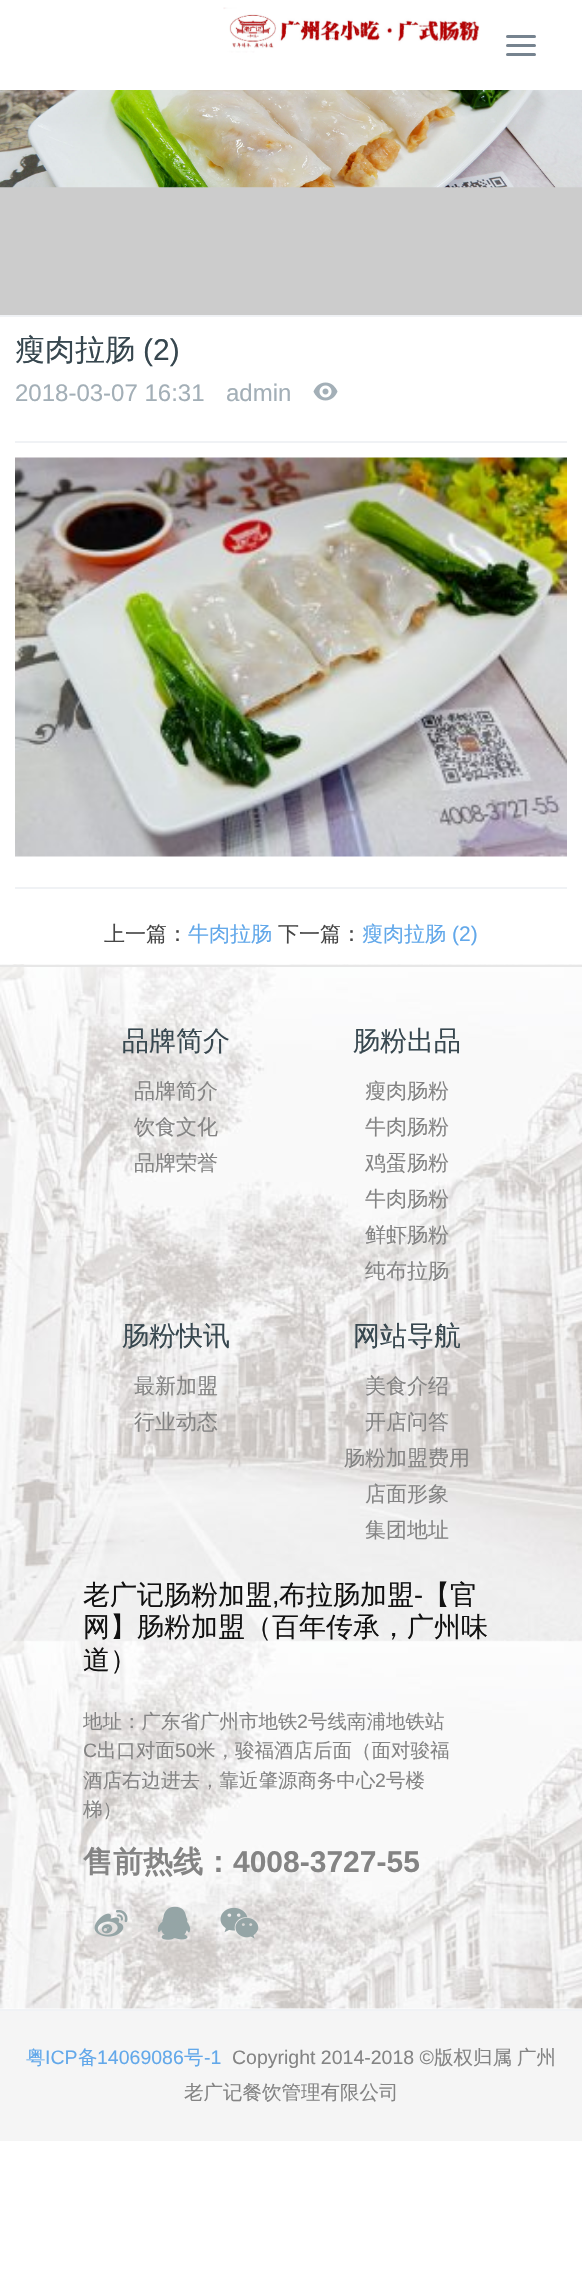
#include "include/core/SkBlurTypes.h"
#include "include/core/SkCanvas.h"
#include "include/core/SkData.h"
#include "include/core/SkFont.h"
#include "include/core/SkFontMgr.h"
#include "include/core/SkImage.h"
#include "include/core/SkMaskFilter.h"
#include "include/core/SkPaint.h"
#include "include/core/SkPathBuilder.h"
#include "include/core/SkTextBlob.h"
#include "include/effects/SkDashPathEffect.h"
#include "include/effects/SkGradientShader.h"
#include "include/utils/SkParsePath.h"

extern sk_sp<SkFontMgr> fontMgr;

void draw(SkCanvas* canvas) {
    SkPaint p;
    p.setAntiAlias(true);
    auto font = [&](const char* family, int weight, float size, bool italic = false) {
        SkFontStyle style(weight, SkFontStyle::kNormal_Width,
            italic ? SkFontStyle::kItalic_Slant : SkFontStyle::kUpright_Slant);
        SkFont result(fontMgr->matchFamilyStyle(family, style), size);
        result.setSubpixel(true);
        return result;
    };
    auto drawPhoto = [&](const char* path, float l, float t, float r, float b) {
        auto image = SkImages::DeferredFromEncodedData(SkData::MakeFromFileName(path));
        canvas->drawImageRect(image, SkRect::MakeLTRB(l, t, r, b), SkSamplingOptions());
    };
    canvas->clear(0xFFFFFFFF);
    drawPhoto("media/1.png", 223, 7, 480, 53);
    p.setColor(0xFF76838F);
    canvas->drawRoundRect(SkRect::MakeLTRB(506, 35, 536, 38), 1.5f, 1.5f, p);
    canvas->drawRoundRect(SkRect::MakeLTRB(506, 44, 536, 47), 1.5f, 1.5f, p);
    canvas->drawRoundRect(SkRect::MakeLTRB(506, 53, 536, 56), 1.5f, 1.5f, p);
    p.setColor(0xFFCCCCCC);
    canvas->drawRect(SkRect::MakeLTRB(0, 187, 582, 315), p);
    drawPhoto("media/2.png", 0, 90, 582, 188);
    p.setColor(0xFFF0F2F5);
    canvas->drawRect(SkRect::MakeLTRB(0, 315, 582, 317), p);
    auto font1 = font("WenQuanYi Zen Hei", 500, 30);
    p.setColor(0xFF37474F);
    canvas->drawString("瘦肉拉肠", 15, 360, font1, p);
    auto font2 = font("Liberation Sans", 400, 30);
    canvas->drawString("(2)", 143, 360, font2, p);
    p.setColor(0xFFF0F2F5);
    canvas->drawRect(SkRect::MakeLTRB(15, 441, 567, 443), p);
    auto font3 = font("Liberation Sans", 400, 24);
    p.setColor(0xFFA3AFB7);
    canvas->drawString("2018-03-07 16:31", 15, 401, font3, p);
    canvas->drawString("admin", 226, 401, font3, p);
    drawPhoto("media/3.png", 313, 382, 338, 401);
    drawPhoto("media/4.png", 15, 457, 567, 857);
    p.setColor(0xFFF0F2F5);
    canvas->drawRect(SkRect::MakeLTRB(15, 887, 567, 889), p);
    auto font4 = font("WenQuanYi Zen Hei", 500, 21);
    p.setColor(0xFF464646);
    canvas->drawString("上一篇：", 104, 941, font4, p);
    p.setColor(0xFF62A8EA);
    canvas->drawString("牛肉拉肠", 188, 941, font4, p);
    p.setColor(0xFF464646);
    canvas->drawString("下一篇：", 278, 941, font4, p);
    p.setColor(0xFF62A8EA);
    canvas->drawString("瘦肉拉肠", 362, 941, font4, p);
    auto font5 = font("Liberation Sans", 400, 21);
    canvas->drawString("(2)", 452, 941, font5, p);
    drawPhoto("media/5.png", 0, 964, 582, 2009);
    p.setColor(0xFFE7E7E7);
    canvas->drawRect(SkRect::MakeLTRB(0, 965, 582, 967), p);
    auto font6 = font("WenQuanYi Zen Hei", 500, 27);
    p.setColor(0xFF37474F);
    canvas->drawString("品牌简介", 122, 1050, font6, p);
    p.setColor(0xFF848484);
    {
        const struct { const char* s; float x, y; } items[] = {
            {"品牌简介", 134, 1098},
            {"饮食文化", 134, 1134},
            {"品牌荣誉", 134, 1170},
        };
        for (auto [s, x, y] : items) {
            canvas->drawString(s, x, y, font4, p);
        }
    }
    p.setColor(0xFF37474F);
    canvas->drawString("肠粉出品", 353, 1050, font6, p);
    p.setColor(0xFF848484);
    {
        const struct { const char* s; float x, y; } items[] = {
            {"瘦肉肠粉", 365, 1098},
            {"牛肉肠粉", 365, 1134},
            {"鸡蛋肠粉", 365, 1170},
            {"牛肉肠粉", 365, 1206},
            {"鲜虾肠粉", 365, 1242},
            {"纯布拉肠", 365, 1278},
        };
        for (auto [s, x, y] : items) {
            canvas->drawString(s, x, y, font4, p);
        }
    }
    p.setColor(0xFF37474F);
    canvas->drawString("肠粉快讯", 122, 1345, font6, p);
    p.setColor(0xFF848484);
    canvas->drawString("最新加盟", 134, 1393, font4, p);
    canvas->drawString("行业动态", 134, 1429, font4, p);
    p.setColor(0xFF37474F);
    canvas->drawString("网站导航", 353, 1345, font6, p);
    p.setColor(0xFF848484);
    {
        const struct { const char* s; float x, y; } items[] = {
            {"美食介绍", 365, 1393},
            {"开店问答", 365, 1429},
            {"肠粉加盟费用", 344, 1465},
            {"店面形象", 365, 1501},
            {"集团地址", 365, 1537},
        };
        for (auto [s, x, y] : items) {
            canvas->drawString(s, x, y, font4, p);
        }
    }
    p.setColor(0xFF111111);
    canvas->drawString("老广记肠粉加盟", 83, 1604, font6, p);
    canvas->drawString("布拉肠加盟", 279, 1604, font6, p);
    auto font7 = font("Liberation Sans", 400, 27);
    canvas->drawString("-", 414, 1604, font7, p);
    canvas->drawString("【官", 423, 1604, font6, p);
    canvas->drawString(",", 272, 1604, font7, p);
    canvas->drawString("网】肠粉加盟（百年传承，广州味", 83, 1636, font6, p);
    canvas->drawString("道）", 83, 1669, font6, p);
    canvas->save();
    canvas->clipRect(SkRect::MakeLTRB(83, 1707, 500, 1899));
    auto font8 = font("WenQuanYi Zen Hei", 500, 19.5f);
    p.setColor(0xFF848484);
    canvas->drawString("地址：广东省广州市地铁", 83, 1728, font8, p);
    canvas->restore();
    auto font9 = font("Liberation Sans", 400, 19.5f);
    canvas->drawString("2", 297, 1728, font9, p);
    canvas->drawString("号线南浦地铁站", 308, 1728, font8, p);
    canvas->drawString("C", 83, 1757, font9, p);
    canvas->drawString("出口对面", 97, 1757, font8, p);
    canvas->drawString("50", 175, 1757, font9, p);
    canvas->drawString("米，骏福酒店后面（面对骏福", 196, 1757, font8, p);
    canvas->drawString("酒店右边进去，靠近肇源商务中心", 83, 1787, font8, p);
    canvas->drawString("2", 375, 1787, font9, p);
    canvas->drawString("号楼", 386, 1787, font8, p);
    canvas->drawString("梯）", 83, 1816, font8, p);
    auto font10 = font("WenQuanYi Zen Hei", 700, 30);
    canvas->drawString("售前热线：", 83, 1872, font10, p);
    auto font11 = font("Liberation Sans", 700, 30);
    canvas->drawString("4008-3727-55", 233, 1872, font11, p);
    drawPhoto("media/6.png", 94, 1909, 128, 1937);
    drawPhoto("media/7.png", 157, 1906, 191, 1940);
    drawPhoto("media/8.png", 220, 1907, 259, 1939);
    p.setColor(0xFFF5F5F5);
    canvas->drawRect(SkRect::MakeLTRB(0, 2011, 582, 2141), p);
    p.setColor(0xFFF0F2F5);
    canvas->drawRect(SkRect::MakeLTRB(0, 2009, 582, 2011), p);
    p.setColor(0xFF62A8EA);
    canvas->drawString("粤", 26, 2064, font8, p);
    canvas->drawString("ICP", 45, 2064, font9, p);
    canvas->drawString("备", 78, 2064, font8, p);
    canvas->drawString("14069086", 97, 2064, font9, p);
    canvas->drawString("号", 184, 2064, font8, p);
    canvas->drawString("-1", 204, 2064, font9, p);
    p.setColor(0xFF848484);
    canvas->drawString("Copyright 2014-2018 ©", 232, 2064, font9, p);
    {
        const struct { const char* s; float x, y; } items[] = {
            {"版权归属", 434, 2064},
            {"广州", 517, 2064},
            {"老广记餐饮管理有限公司", 184, 2099},
        };
        for (auto [s, x, y] : items) {
            canvas->drawString(s, x, y, font8, p);
        }
    }
}
